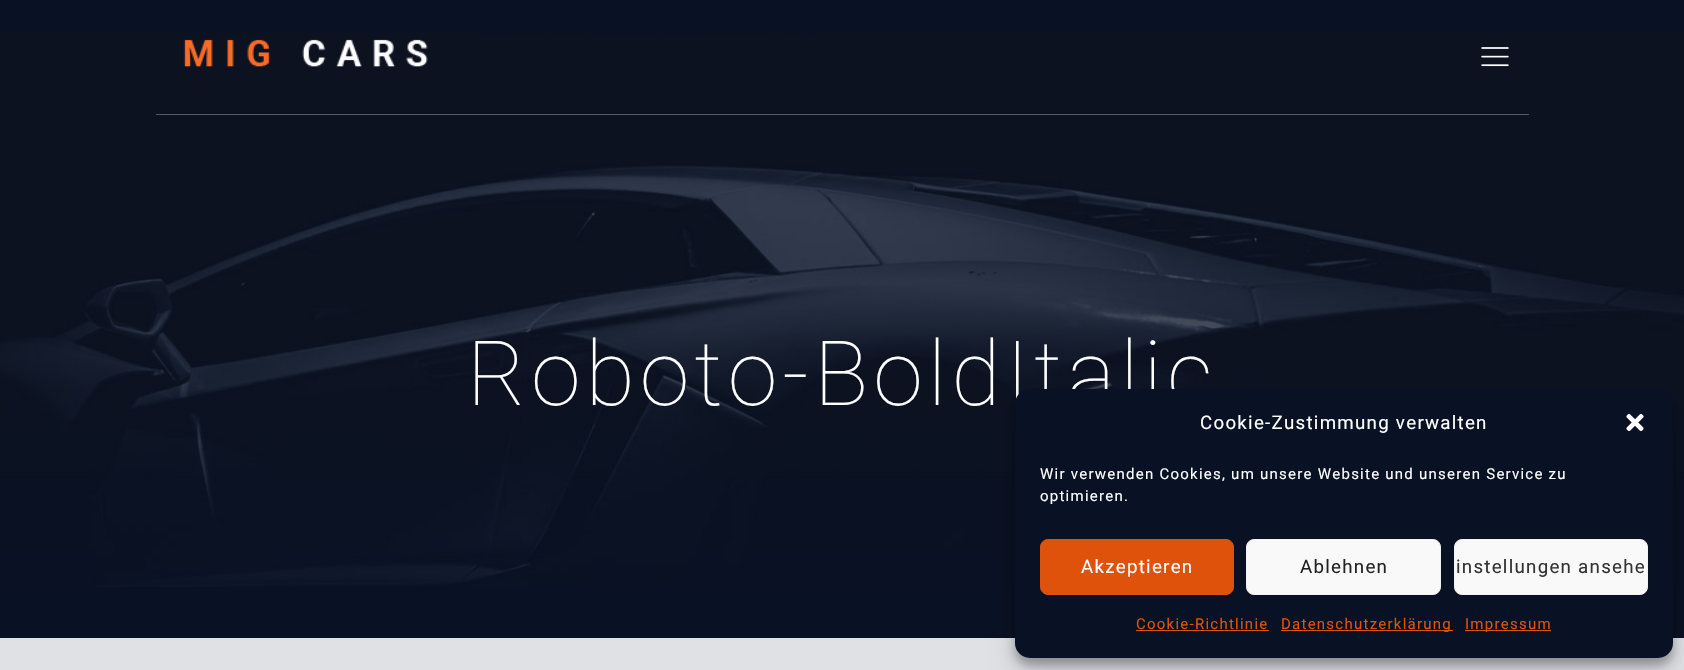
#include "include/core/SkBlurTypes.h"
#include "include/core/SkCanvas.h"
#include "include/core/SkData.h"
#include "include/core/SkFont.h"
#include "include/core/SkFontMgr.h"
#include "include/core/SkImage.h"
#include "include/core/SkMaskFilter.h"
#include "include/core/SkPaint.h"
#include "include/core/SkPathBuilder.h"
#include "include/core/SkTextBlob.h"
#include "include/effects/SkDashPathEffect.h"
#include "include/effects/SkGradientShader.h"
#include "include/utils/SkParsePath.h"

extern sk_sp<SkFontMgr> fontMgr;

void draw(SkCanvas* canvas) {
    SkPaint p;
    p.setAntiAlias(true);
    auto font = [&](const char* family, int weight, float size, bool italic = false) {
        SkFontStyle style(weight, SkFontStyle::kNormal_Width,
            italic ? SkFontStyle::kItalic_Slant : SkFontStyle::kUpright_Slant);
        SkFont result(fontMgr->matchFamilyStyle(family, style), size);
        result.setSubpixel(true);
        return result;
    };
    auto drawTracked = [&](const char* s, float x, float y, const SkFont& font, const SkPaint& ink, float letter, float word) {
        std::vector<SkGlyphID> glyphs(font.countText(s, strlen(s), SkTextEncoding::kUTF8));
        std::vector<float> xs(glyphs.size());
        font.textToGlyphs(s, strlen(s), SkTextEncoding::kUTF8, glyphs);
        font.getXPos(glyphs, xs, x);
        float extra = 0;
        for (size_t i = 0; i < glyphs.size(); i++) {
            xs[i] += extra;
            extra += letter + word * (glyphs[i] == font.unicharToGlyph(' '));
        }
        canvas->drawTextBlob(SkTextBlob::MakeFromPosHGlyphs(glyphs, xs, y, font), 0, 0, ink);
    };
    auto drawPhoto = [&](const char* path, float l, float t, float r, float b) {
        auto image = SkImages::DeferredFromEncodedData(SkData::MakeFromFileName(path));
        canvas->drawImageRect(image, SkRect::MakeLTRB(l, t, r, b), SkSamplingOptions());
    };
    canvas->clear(0xFFE0E1E5);
    p.setColor(0xFF091124);
    canvas->drawRect(SkRect::MakeLTRB(0, 0, 1684, 638), p);
    drawPhoto("media/1.png", 0, 33, 1684, 35);
    drawPhoto("media/4.png", 0, 35, 1684, 587);
    p.setColor(0xFF555963);
    canvas->drawRect(SkRect::MakeLTRB(156, 114, 1529, 115), p);
    drawPhoto("media/2.png", 183, 39, 428, 67);
    drawPhoto("media/3.png", 1481, 47, 1509, 67);
    auto font1 = font("Roboto", 100, 90);
    p.setColor(0xFFFFFFFF);
    drawTracked("Roboto-BoldItalic", 467, 405, font1, p, 5, 0);
    p.setColor(0x3B000000);
    p.setMaskFilter(SkMaskFilter::MakeBlur(kNormal_SkBlurStyle, 4));
    canvas->drawRoundRect(SkRect::MakeLTRB(1015, 396, 1673, 665), 15, 15, p);
    p.setMaskFilter(nullptr);
    p.setColor(0x30000000);
    p.setMaskFilter(SkMaskFilter::MakeBlur(kNormal_SkBlurStyle, 12.5f));
    canvas->drawRoundRect(SkRect::MakeLTRB(1015, 401, 1673, 670), 15, 15, p);
    p.setMaskFilter(nullptr);
    p.setColor(0xFF091124);
    canvas->drawRoundRect(SkRect::MakeLTRB(1015, 389, 1673, 658), 15, 15, p);
    auto font2 = font("Roboto", 400, 18.75f);
    p.setColor(0xFFFFFFFF);
    drawTracked("Cookie-Zustimmung verwalten", 1200, 429, font2, p, 1.25f, 0);
    drawPhoto("media/5.png", 1626, 413, 1644, 431);
    auto font3 = font("Roboto", 400, 15);
    drawTracked("Wir verwenden Cookies, um unsere Website und unseren Service zu", 1040, 479, font3, p, 1.25f, 0);
    drawTracked("optimieren.", 1040, 501, font3, p, 1.25f, 0);
    p.setColor(0xFFDF520C);
    canvas->drawRoundRect(SkRect::MakeLTRB(1040.5f, 539.5f, 1233.5f, 594.5f), 7.5f, 7.5f, p);
    p.setStyle(SkPaint::kStroke_Style);
    p.setStrokeWidth(1);
    canvas->drawRoundRect(SkRect::MakeLTRB(1040.5f, 539.5f, 1233.5f, 594.5f), 7.5f, 7.5f, p);
    p.setStyle(SkPaint::kFill_Style);
    p.setColor(0xFFFFFFFF);
    drawTracked("Akzeptieren", 1081, 573, font2, p, 1.25f, 0);
    p.setColor(0xFFF9F9F9);
    canvas->drawRoundRect(SkRect::MakeLTRB(1246.5f, 539.5f, 1440.5f, 594.5f), 7.5f, 7.5f, p);
    p.setStyle(SkPaint::kStroke_Style);
    p.setColor(0xFFF2F2F2);
    canvas->drawRoundRect(SkRect::MakeLTRB(1246.5f, 539.5f, 1440.5f, 594.5f), 7.5f, 7.5f, p);
    p.setStyle(SkPaint::kFill_Style);
    p.setColor(0xFF222222);
    drawTracked("Ablehnen", 1300, 573, font2, p, 1.25f, 0);
    p.setColor(0xFFF9F9F9);
    canvas->drawRoundRect(SkRect::MakeLTRB(1454.5f, 539.5f, 1647.5f, 594.5f), 7.5f, 7.5f, p);
    p.setStyle(SkPaint::kStroke_Style);
    p.setColor(0xFFF2F2F2);
    canvas->drawRoundRect(SkRect::MakeLTRB(1454.5f, 539.5f, 1647.5f, 594.5f), 7.5f, 7.5f, p);
    p.setStyle(SkPaint::kFill_Style);
    p.setColor(0xFF333333);
    drawTracked("instellungen ansehe", 1456, 573, font2, p, 1.25f, 0);
    p.setColor(0xFFDF520C);
    drawTracked("Cookie-Richtlinie", 1136, 629, font3, p, 1.25f, 0);
    canvas->drawRect(SkRect::MakeLTRB(1136, 630, 1269, 631), p);
    canvas->drawRect(SkRect::MakeLTRB(1281, 630, 1453, 631), p);
    drawTracked("Datenschutzerklärung", 1281, 629, font3, p, 1.25f, 0);
    canvas->drawRect(SkRect::MakeLTRB(1465, 630, 1551, 631), p);
    drawTracked("Impressum", 1465, 629, font3, p, 1.25f, 0);
}
